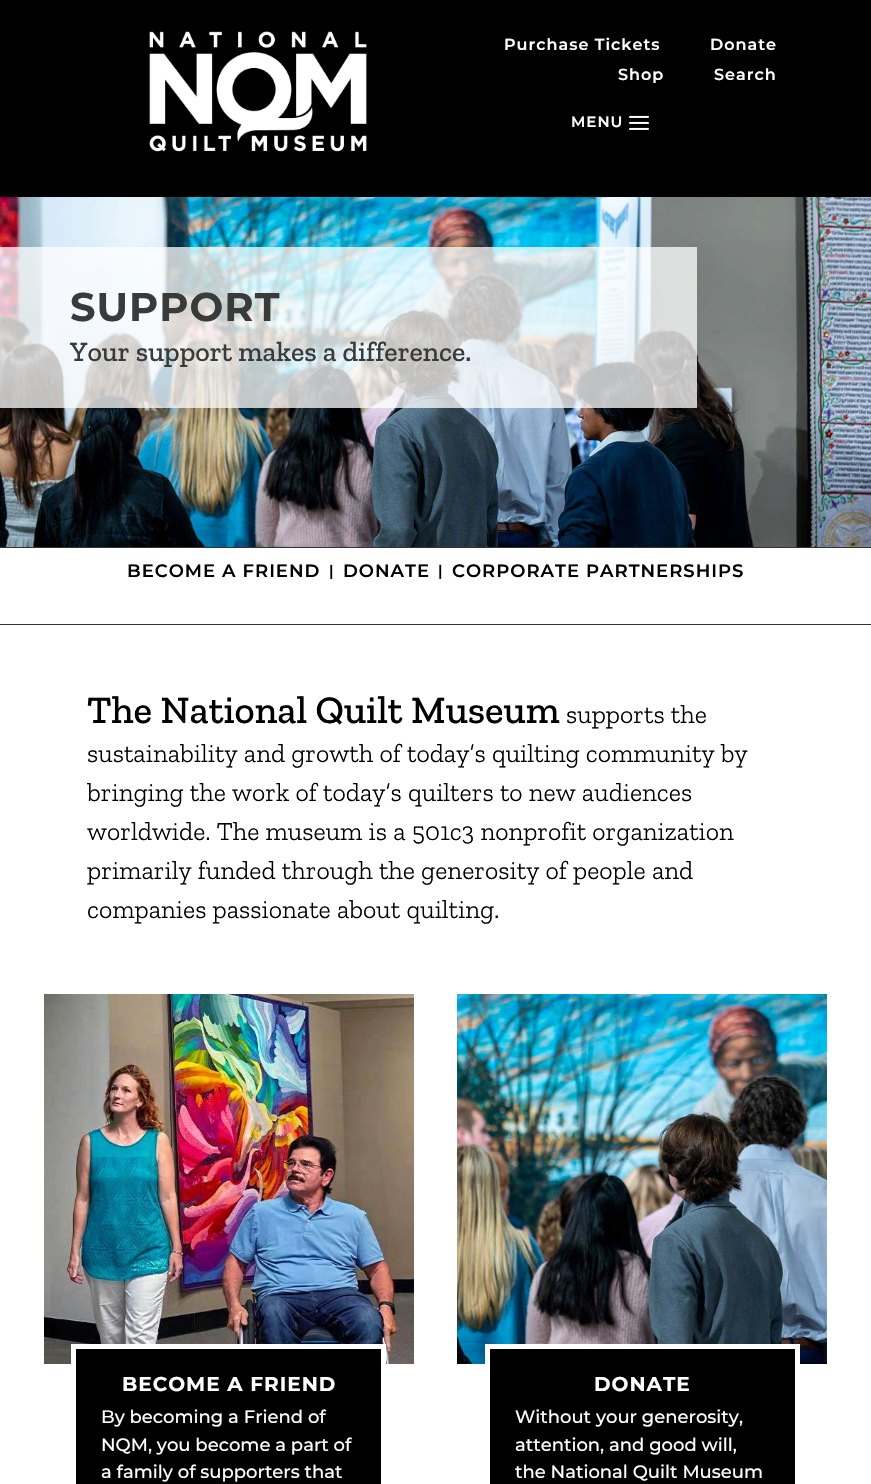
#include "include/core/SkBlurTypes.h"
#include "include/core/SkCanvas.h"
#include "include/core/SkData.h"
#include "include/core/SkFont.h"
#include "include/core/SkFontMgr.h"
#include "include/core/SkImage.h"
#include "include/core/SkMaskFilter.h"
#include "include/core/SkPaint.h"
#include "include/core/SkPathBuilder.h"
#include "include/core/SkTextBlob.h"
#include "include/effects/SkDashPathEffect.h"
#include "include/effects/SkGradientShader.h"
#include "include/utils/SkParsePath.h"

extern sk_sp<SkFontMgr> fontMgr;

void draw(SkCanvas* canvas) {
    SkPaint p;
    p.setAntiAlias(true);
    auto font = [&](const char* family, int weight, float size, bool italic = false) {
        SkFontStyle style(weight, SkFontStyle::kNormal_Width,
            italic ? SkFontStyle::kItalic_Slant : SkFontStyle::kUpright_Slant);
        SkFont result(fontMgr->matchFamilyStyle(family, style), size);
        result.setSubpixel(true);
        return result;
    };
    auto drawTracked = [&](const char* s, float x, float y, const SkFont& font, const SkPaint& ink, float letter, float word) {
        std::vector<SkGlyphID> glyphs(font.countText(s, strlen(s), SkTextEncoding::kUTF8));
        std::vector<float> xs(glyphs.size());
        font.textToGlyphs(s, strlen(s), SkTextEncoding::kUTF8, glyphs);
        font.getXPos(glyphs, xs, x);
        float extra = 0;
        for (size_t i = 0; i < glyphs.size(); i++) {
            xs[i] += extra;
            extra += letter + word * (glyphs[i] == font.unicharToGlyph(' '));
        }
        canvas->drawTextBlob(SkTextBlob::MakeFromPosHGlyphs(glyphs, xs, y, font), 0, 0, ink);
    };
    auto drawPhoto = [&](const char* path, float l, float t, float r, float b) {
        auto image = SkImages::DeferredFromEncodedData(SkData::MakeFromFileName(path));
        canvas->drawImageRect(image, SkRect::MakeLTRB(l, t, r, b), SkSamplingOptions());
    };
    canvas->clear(0xFFFFFFFF);
    p.setColor(0xFF000000);
    canvas->drawRect(SkRect::MakeLTRB(0, 0, 871, 197), p);
    drawPhoto("media/1.png", 149, 31, 367, 152);
    auto font1 = font("Montserrat", 600, 16);
    p.setColor(0xFFFFFFFF);
    {
        const struct { const char* s; float x, y; } items[] = {
            {"Purchase Tickets", 504, 50},
            {"Donate", 710, 50},
            {"Shop", 618, 80},
            {"Search", 714, 80},
        };
        for (auto [s, x, y] : items) {
            drawTracked(s, x, y, font1, p, 1, 0);
        }
    }
    auto font2 = font("Montserrat", 600, 15);
    drawTracked("MENU", 571, 127, font2, p, 1, 0);
    drawPhoto("media/2.png", 629, 115, 649, 130);
    drawPhoto("media/3.png", 0, 197, 871, 547);
    p.setColor(0xBFFFFFFF);
    canvas->drawRect(SkRect::MakeLTRB(0, 247, 697, 408), p);
    auto font3 = font("Montserrat", 700, 40);
    p.setColor(0xFF393A3A);
    drawTracked("SUPPORT", 70, 321, font3, p, 1, 0);
    auto font4 = font("Zilla Slab", 500, 28);
    canvas->drawString("Your support makes a difference.", 70, 361, font4, p);
    p.setColor(0xFF333333);
    canvas->drawRect(SkRect::MakeLTRB(0, 547, 871, 548), p);
    canvas->drawRect(SkRect::MakeLTRB(0, 624, 871, 625), p);
    auto font5 = font("Montserrat", 600, 18);
    p.setColor(0xFF000000);
    drawTracked("BECOME A FRIEND", 127, 577, font5, p, 1, 0);
    drawTracked("|", 329, 576, font2, p, 1, 0);
    drawTracked("DONATE", 343, 577, font5, p, 1, 0);
    drawTracked("|", 438, 576, font2, p, 1, 0);
    drawTracked("CORPORATE PARTNERSHIPS", 452, 577, font5, p, 1, 0);
    auto font6 = font("Zilla Slab", 500, 39);
    canvas->drawString("The National Quilt Museum", 87, 723, font6, p);
    auto font7 = font("Zilla Slab", 300, 26);
    {
        const struct { const char* s; float x, y; } items[] = {
            {"supports the", 566, 723},
            {"sustainability and growth of today’s quilting community by", 87, 762},
            {"bringing the work of today’s quilters to new audiences", 87, 801},
            {"worldwide. The museum is a 501c3 nonprofit organization", 87, 840},
            {"primarily funded through the generosity of people and", 87, 879},
            {"companies passionate about quilting.", 87, 918},
        };
        for (auto [s, x, y] : items) {
            canvas->drawString(s, x, y, font7, p);
        }
    }
    drawPhoto("media/4.png", 44, 994, 414, 1364);
    canvas->drawRect(SkRect::MakeLTRB(73.5f, 1346.5f, 383.5f, 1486.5f), p);
    p.setStyle(SkPaint::kStroke_Style);
    p.setStrokeWidth(5);
    p.setColor(0xFFFFFFFF);
    canvas->drawRect(SkRect::MakeLTRB(73.5f, 1346.5f, 383.5f, 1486.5f), p);
    auto font8 = font("Montserrat", 700, 20);
    p.setStyle(SkPaint::kFill_Style);
    drawTracked("BECOME A FRIEND", 122, 1391, font8, p, 1, 0);
    auto font9 = font("Montserrat", 500, 18);
    {
        const struct { const char* s; float x, y; } items[] = {
            {"By becoming a Friend of", 101, 1423},
            {"NQM, you become a part of", 101, 1451},
            {"a family of supporters that", 101, 1478},
        };
        for (auto [s, x, y] : items) {
            canvas->drawString(s, x, y, font9, p);
        }
    }
    drawPhoto("media/5.png", 457, 994, 827, 1364);
    p.setColor(0xFF000000);
    canvas->drawRect(SkRect::MakeLTRB(487.5f, 1346.5f, 797.5f, 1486.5f), p);
    p.setStyle(SkPaint::kStroke_Style);
    p.setColor(0xFFFFFFFF);
    canvas->drawRect(SkRect::MakeLTRB(487.5f, 1346.5f, 797.5f, 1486.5f), p);
    p.setStyle(SkPaint::kFill_Style);
    drawTracked("DONATE", 594, 1391, font8, p, 1, 0);
    {
        const struct { const char* s; float x, y; } items[] = {
            {"Without your generosity,", 515, 1423},
            {"attention, and good will,", 515, 1451},
            {"the National Quilt Museum", 515, 1478},
        };
        for (auto [s, x, y] : items) {
            canvas->drawString(s, x, y, font9, p);
        }
    }
}
